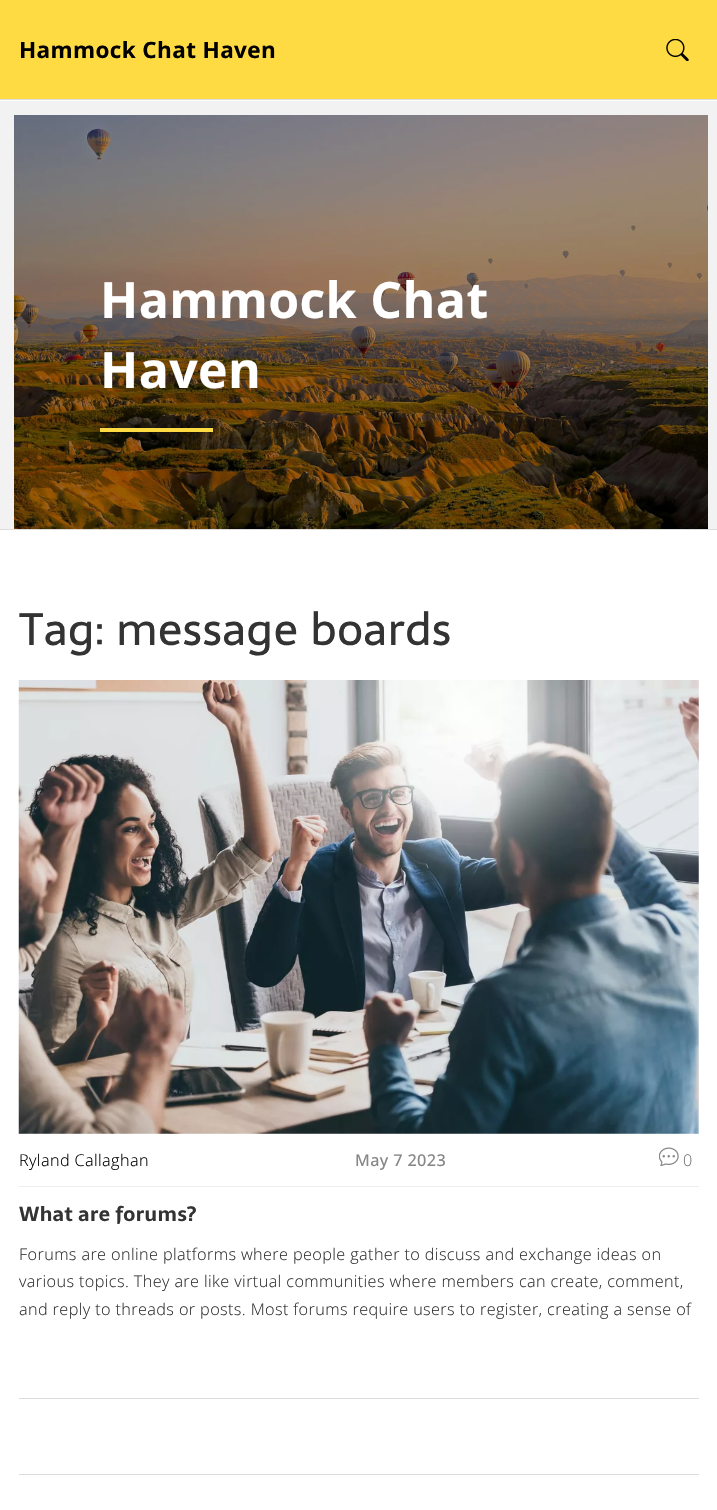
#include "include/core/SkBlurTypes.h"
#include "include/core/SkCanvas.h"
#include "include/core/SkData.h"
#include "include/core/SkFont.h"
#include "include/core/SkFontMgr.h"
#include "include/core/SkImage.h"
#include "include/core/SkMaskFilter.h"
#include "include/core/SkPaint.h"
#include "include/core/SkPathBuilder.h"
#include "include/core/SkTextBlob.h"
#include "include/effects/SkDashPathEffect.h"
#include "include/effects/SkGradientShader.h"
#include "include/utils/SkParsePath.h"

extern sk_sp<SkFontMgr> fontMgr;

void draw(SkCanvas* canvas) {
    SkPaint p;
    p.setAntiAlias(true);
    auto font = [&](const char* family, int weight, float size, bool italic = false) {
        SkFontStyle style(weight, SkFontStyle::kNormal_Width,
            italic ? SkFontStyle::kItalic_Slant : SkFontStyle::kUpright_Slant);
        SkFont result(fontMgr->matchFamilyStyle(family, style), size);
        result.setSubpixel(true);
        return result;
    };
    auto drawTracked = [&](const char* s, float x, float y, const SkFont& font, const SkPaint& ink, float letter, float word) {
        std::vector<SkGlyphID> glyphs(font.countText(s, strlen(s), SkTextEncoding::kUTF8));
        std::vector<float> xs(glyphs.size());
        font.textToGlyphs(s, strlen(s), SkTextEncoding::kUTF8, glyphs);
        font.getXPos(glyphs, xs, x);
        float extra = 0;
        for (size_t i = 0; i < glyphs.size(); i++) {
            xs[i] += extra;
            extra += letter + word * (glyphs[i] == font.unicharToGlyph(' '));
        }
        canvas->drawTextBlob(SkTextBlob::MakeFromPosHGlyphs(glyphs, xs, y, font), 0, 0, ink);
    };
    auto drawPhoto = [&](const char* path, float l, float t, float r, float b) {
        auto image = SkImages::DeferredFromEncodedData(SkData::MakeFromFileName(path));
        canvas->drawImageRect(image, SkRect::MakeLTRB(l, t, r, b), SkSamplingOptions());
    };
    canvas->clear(0xFFFFFFFF);
    p.setColor(0xFFFFDB43);
    canvas->drawRect(SkRect::MakeLTRB(0, 0, 717, 99), p);
    p.setColor(0xFFDDDDDD);
    canvas->drawRect(SkRect::MakeLTRB(0, 99, 717, 100), p);
    auto font1 = font("Open Sans", 700, 22.5f);
    p.setColor(0xFF000000);
    drawTracked("Hammock Chat Haven", 19, 58, font1, p, 0.38f, 0);
    drawPhoto("media/1.png", 666, 39, 689, 61);
    drawPhoto("media/2.png", 14, 115, 708, 529);
    {
        const struct { float l, t, r, b; SkColor color; } items[] = {
            {0, 101, 14, 529, 0xFFF2F2F2},
            {14, 101, 708, 115, 0xFFF2F2F2},
            {708, 101, 717, 529, 0xFFF2F2F2},
        };
        for (auto [l, t, r, b, color] : items) {
            p.setColor(color);
            canvas->drawRect(SkRect::MakeLTRB(l, t, r, b), p);
        }
    }
    auto font2 = font("Open Sans", 700, 50);
    p.setColor(0xFFFFFFFF);
    drawTracked("Hammock Chat", 100, 318, font2, p, 0.38f, 0);
    drawTracked("Haven", 100, 388, font2, p, 0.38f, 0);
    p.setColor(0xFFFFDB43);
    canvas->drawRect(SkRect::MakeLTRB(100, 428, 213, 432), p);
    p.setColor(0xFFDDDDDD);
    canvas->drawRect(SkRect::MakeLTRB(0, 529, 717, 530), p);
    auto font3 = font("Sarala", 400, 45);
    p.setColor(0xFF333333);
    drawTracked("Tag: message boards", 19, 645, font3, p, 0.5f, 0);
    drawPhoto("media/3.png", 18, 680, 699, 1134);
    p.setColor(0xFFEDEDED);
    canvas->drawRect(SkRect::MakeLTRB(19, 1186, 699, 1187), p);
    auto font4 = font("Open Sans", 300, 16.25f);
    p.setColor(0xFF000000);
    drawTracked("Ryland Callaghan", 19, 1166, font4, p, 0.38f, 0);
    auto font5 = font("Open Sans", 500, 16.25f);
    p.setColor(0xFF878787);
    drawTracked("May 7 2023", 355, 1166, font5, p, 0.38f, 0);
    drawPhoto("media/4.png", 659, 1147, 679, 1166);
    p.setColor(0xFF757575);
    drawTracked("0", 683, 1166, font4, p, 0.38f, 0);
    auto font6 = font("Sarala", 700, 20);
    p.setColor(0xFF333333);
    drawTracked("What are forums?", 19, 1221, font6, p, 0.5f, 0);
    {
        const struct { const char* s; float x, y; } items[] = {
            {"Forums are online platforms where people gather to discuss and exchange ideas on", 19, 1260},
            {"various topics. They are like virtual communities where members can create, comment,", 19, 1287},
            {"and reply to threads or posts. Most forums require users to register, creating a sense of", 19, 1315},
        };
        for (auto [s, x, y] : items) {
            drawTracked(s, x, y, font4, p, 0.38f, 0);
        }
    }
    p.setColor(0xFFDDDDDD);
    canvas->drawRect(SkRect::MakeLTRB(19, 1398, 699, 1399), p);
    canvas->drawRect(SkRect::MakeLTRB(19, 1474, 699, 1475), p);
}
